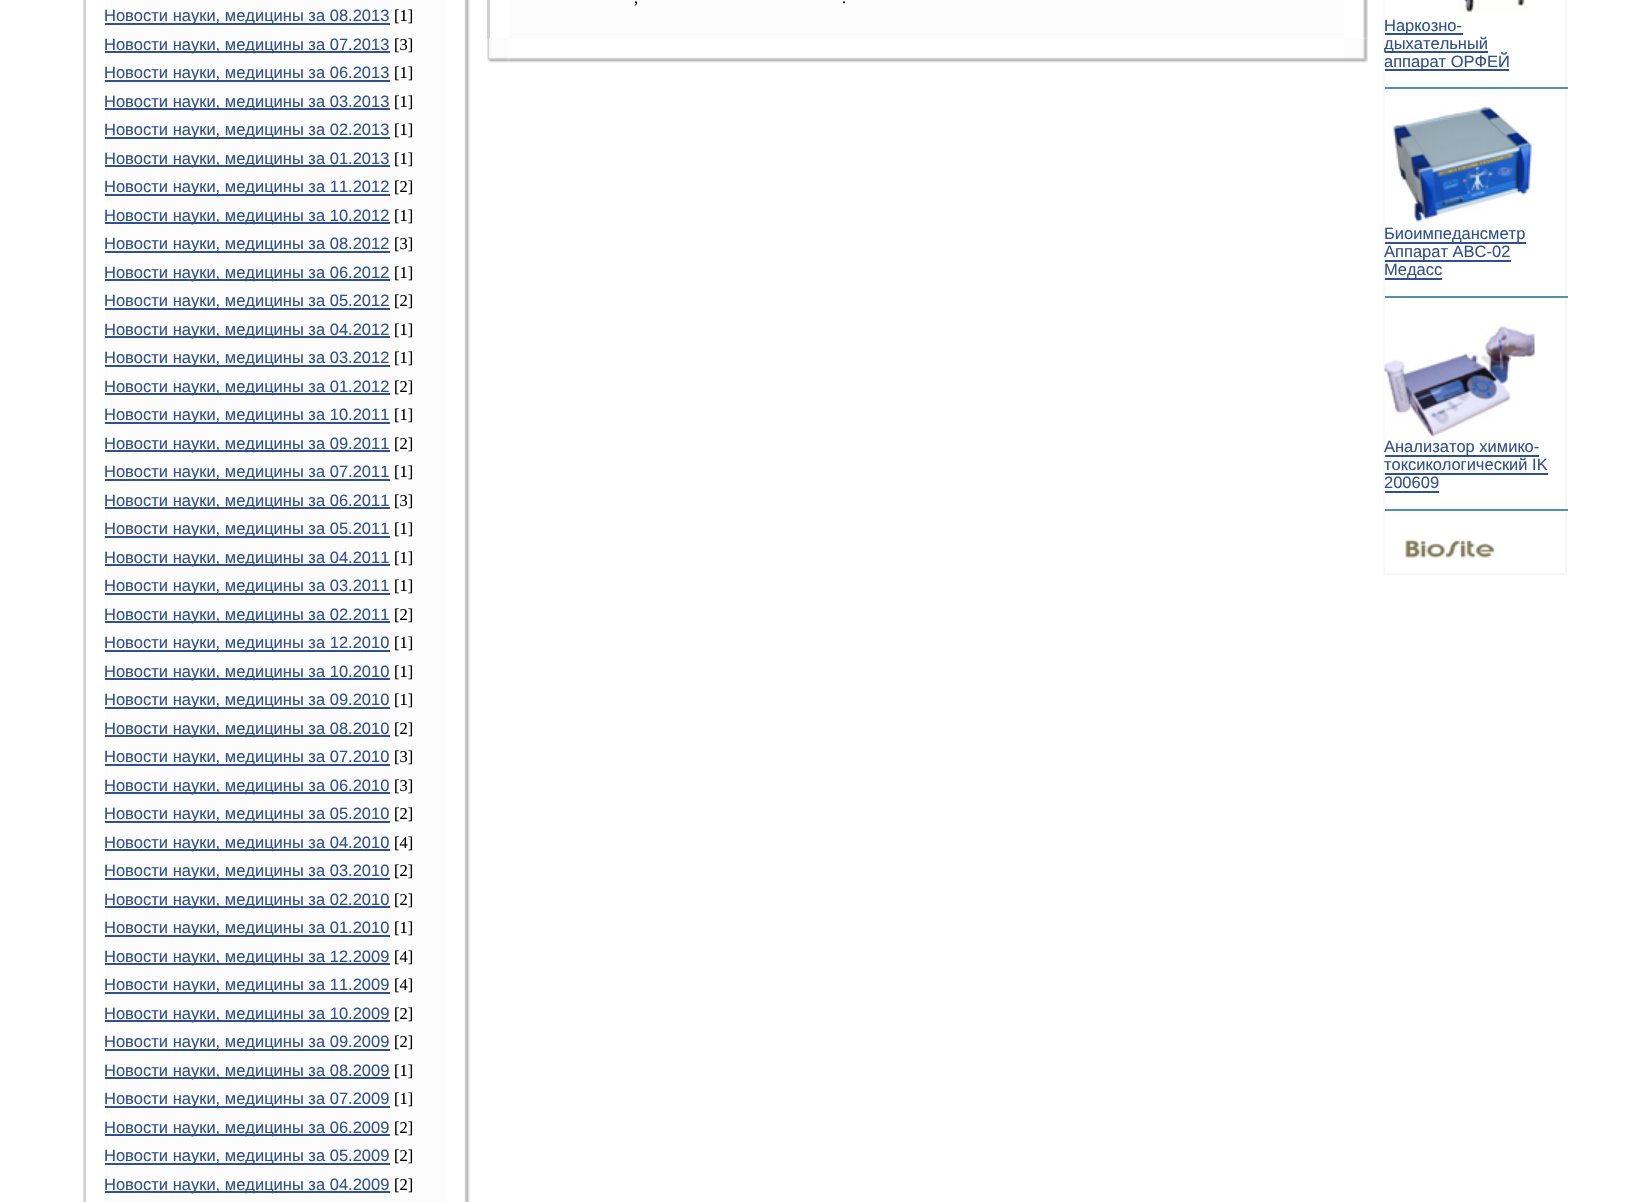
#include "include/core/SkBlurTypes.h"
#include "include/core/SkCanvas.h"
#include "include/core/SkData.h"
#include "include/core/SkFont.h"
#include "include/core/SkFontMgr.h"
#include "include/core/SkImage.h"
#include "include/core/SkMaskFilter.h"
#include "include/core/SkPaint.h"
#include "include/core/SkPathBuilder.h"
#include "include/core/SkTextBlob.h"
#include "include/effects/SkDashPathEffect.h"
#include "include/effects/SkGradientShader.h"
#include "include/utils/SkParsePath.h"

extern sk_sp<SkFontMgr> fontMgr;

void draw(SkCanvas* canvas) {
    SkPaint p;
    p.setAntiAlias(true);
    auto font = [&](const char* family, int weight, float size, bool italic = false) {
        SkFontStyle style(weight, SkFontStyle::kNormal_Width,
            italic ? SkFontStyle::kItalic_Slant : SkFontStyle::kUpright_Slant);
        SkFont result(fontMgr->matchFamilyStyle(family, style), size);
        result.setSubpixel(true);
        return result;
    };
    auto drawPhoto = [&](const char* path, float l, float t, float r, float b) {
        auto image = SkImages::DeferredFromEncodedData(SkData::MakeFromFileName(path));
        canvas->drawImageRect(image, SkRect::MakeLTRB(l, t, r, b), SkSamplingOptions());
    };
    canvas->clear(0xFFFFFFFF);
    p.setColor(0xFFD1D1D1);
    canvas->drawRect(SkRect::MakeLTRB(487, 0, 490, 39), p);
    p.setColor(0xFFFCFCFC);
    canvas->drawRect(SkRect::MakeLTRB(509, 0, 1344, 39), p);
    auto font1 = font("Liberation Serif", 400, 16.5f);
    p.setColor(0xFF000000);
    canvas->drawString(",", 634, 3, font1, p);
    canvas->drawString(".", 842, 3, font1, p);
    drawPhoto("media/1.png", 1363, 0, 1368, 39);
    drawPhoto("media/2.png", 487, 38, 509, 63);
    drawPhoto("media/3.png", 508, 57, 1344, 63);
    drawPhoto("media/4.png", 1344, 38, 1368, 63);
    {
        const struct { float l, t, r, b; SkColor color; } items[] = {
            {83, 0, 86, 1202, 0xFFD5D5D5},
            {105, 0, 446, 1202, 0xFFFCFCFC},
            {105, 23, 390, 25, 0xFF31518E},
        };
        for (auto [l, t, r, b, color] : items) {
            p.setColor(color);
            canvas->drawRect(SkRect::MakeLTRB(l, t, r, b), p);
        }
    }
    auto font2 = font("Liberation Sans", 400, 16.5f);
    canvas->drawString("Новости науки, медицины за 08.2013", 104, 21, font2, p);
    p.setColor(0xFF000000);
    canvas->drawString("[1]", 394, 21, font1, p);
    p.setColor(0xFF31518E);
    canvas->drawRect(SkRect::MakeLTRB(105, 51, 390, 53), p);
    canvas->drawString("Новости науки, медицины за 07.2013", 104, 50, font2, p);
    p.setColor(0xFF000000);
    canvas->drawString("[3]", 394, 50, font1, p);
    p.setColor(0xFF31518E);
    canvas->drawRect(SkRect::MakeLTRB(105, 80, 390, 82), p);
    canvas->drawString("Новости науки, медицины за 06.2013", 104, 78, font2, p);
    p.setColor(0xFF000000);
    canvas->drawString("[1]", 394, 78, font1, p);
    p.setColor(0xFF31518E);
    canvas->drawRect(SkRect::MakeLTRB(105, 108, 390, 110), p);
    canvas->drawString("Новости науки, медицины за 03.2013", 104, 107, font2, p);
    p.setColor(0xFF000000);
    canvas->drawString("[1]", 394, 107, font1, p);
    p.setColor(0xFF31518E);
    canvas->drawRect(SkRect::MakeLTRB(105, 137, 390, 139), p);
    canvas->drawString("Новости науки, медицины за 02.2013", 104, 135, font2, p);
    p.setColor(0xFF000000);
    canvas->drawString("[1]", 394, 135, font1, p);
    p.setColor(0xFF31518E);
    canvas->drawRect(SkRect::MakeLTRB(105, 165, 390, 167), p);
    canvas->drawString("Новости науки, медицины за 01.2013", 104, 164, font2, p);
    p.setColor(0xFF000000);
    canvas->drawString("[1]", 394, 164, font1, p);
    p.setColor(0xFF31518E);
    canvas->drawRect(SkRect::MakeLTRB(105, 194, 390, 196), p);
    canvas->drawString("Новости науки, медицины за 11.2012", 104, 192, font2, p);
    p.setColor(0xFF000000);
    canvas->drawString("[2]", 394, 192, font1, p);
    p.setColor(0xFF31518E);
    canvas->drawRect(SkRect::MakeLTRB(105, 222, 390, 224), p);
    canvas->drawString("Новости науки, медицины за 10.2012", 104, 221, font2, p);
    p.setColor(0xFF000000);
    canvas->drawString("[1]", 394, 221, font1, p);
    p.setColor(0xFF31518E);
    canvas->drawRect(SkRect::MakeLTRB(105, 251, 390, 253), p);
    canvas->drawString("Новости науки, медицины за 08.2012", 104, 249, font2, p);
    p.setColor(0xFF000000);
    canvas->drawString("[3]", 394, 249, font1, p);
    p.setColor(0xFF31518E);
    canvas->drawRect(SkRect::MakeLTRB(105, 279, 390, 281), p);
    canvas->drawString("Новости науки, медицины за 06.2012", 104, 278, font2, p);
    p.setColor(0xFF000000);
    canvas->drawString("[1]", 394, 278, font1, p);
    p.setColor(0xFF31518E);
    canvas->drawRect(SkRect::MakeLTRB(105, 308, 390, 310), p);
    canvas->drawString("Новости науки, медицины за 05.2012", 104, 306, font2, p);
    p.setColor(0xFF000000);
    canvas->drawString("[2]", 394, 306, font1, p);
    p.setColor(0xFF31518E);
    canvas->drawRect(SkRect::MakeLTRB(105, 336, 390, 338), p);
    canvas->drawString("Новости науки, медицины за 04.2012", 104, 335, font2, p);
    p.setColor(0xFF000000);
    canvas->drawString("[1]", 394, 335, font1, p);
    p.setColor(0xFF31518E);
    canvas->drawRect(SkRect::MakeLTRB(105, 365, 390, 367), p);
    canvas->drawString("Новости науки, медицины за 03.2012", 104, 363, font2, p);
    p.setColor(0xFF000000);
    canvas->drawString("[1]", 394, 363, font1, p);
    p.setColor(0xFF31518E);
    canvas->drawRect(SkRect::MakeLTRB(105, 393, 390, 395), p);
    canvas->drawString("Новости науки, медицины за 01.2012", 104, 392, font2, p);
    p.setColor(0xFF000000);
    canvas->drawString("[2]", 394, 392, font1, p);
    p.setColor(0xFF31518E);
    canvas->drawRect(SkRect::MakeLTRB(105, 422, 390, 424), p);
    canvas->drawString("Новости науки, медицины за 10.2011", 104, 420, font2, p);
    p.setColor(0xFF000000);
    canvas->drawString("[1]", 394, 420, font1, p);
    p.setColor(0xFF31518E);
    canvas->drawRect(SkRect::MakeLTRB(105, 450, 390, 452), p);
    canvas->drawString("Новости науки, медицины за 09.2011", 104, 449, font2, p);
    p.setColor(0xFF000000);
    canvas->drawString("[2]", 394, 449, font1, p);
    p.setColor(0xFF31518E);
    canvas->drawRect(SkRect::MakeLTRB(105, 479, 390, 481), p);
    canvas->drawString("Новости науки, медицины за 07.2011", 104, 477, font2, p);
    p.setColor(0xFF000000);
    canvas->drawString("[1]", 394, 477, font1, p);
    p.setColor(0xFF31518E);
    canvas->drawRect(SkRect::MakeLTRB(105, 507, 390, 509), p);
    canvas->drawString("Новости науки, медицины за 06.2011", 104, 506, font2, p);
    p.setColor(0xFF000000);
    canvas->drawString("[3]", 394, 506, font1, p);
    p.setColor(0xFF31518E);
    canvas->drawRect(SkRect::MakeLTRB(105, 536, 390, 538), p);
    canvas->drawString("Новости науки, медицины за 05.2011", 104, 534, font2, p);
    p.setColor(0xFF000000);
    canvas->drawString("[1]", 394, 534, font1, p);
    p.setColor(0xFF31518E);
    canvas->drawRect(SkRect::MakeLTRB(105, 564, 390, 566), p);
    canvas->drawString("Новости науки, медицины за 04.2011", 104, 563, font2, p);
    p.setColor(0xFF000000);
    canvas->drawString("[1]", 394, 563, font1, p);
    p.setColor(0xFF31518E);
    canvas->drawRect(SkRect::MakeLTRB(105, 593, 390, 595), p);
    canvas->drawString("Новости науки, медицины за 03.2011", 104, 591, font2, p);
    p.setColor(0xFF000000);
    canvas->drawString("[1]", 394, 591, font1, p);
    p.setColor(0xFF31518E);
    canvas->drawRect(SkRect::MakeLTRB(105, 621, 390, 623), p);
    canvas->drawString("Новости науки, медицины за 02.2011", 104, 620, font2, p);
    p.setColor(0xFF000000);
    canvas->drawString("[2]", 394, 620, font1, p);
    p.setColor(0xFF31518E);
    canvas->drawRect(SkRect::MakeLTRB(105, 650, 390, 652), p);
    canvas->drawString("Новости науки, медицины за 12.2010", 104, 648, font2, p);
    p.setColor(0xFF000000);
    canvas->drawString("[1]", 394, 648, font1, p);
    p.setColor(0xFF31518E);
    canvas->drawRect(SkRect::MakeLTRB(105, 678, 390, 680), p);
    canvas->drawString("Новости науки, медицины за 10.2010", 104, 677, font2, p);
    p.setColor(0xFF000000);
    canvas->drawString("[1]", 394, 677, font1, p);
    p.setColor(0xFF31518E);
    canvas->drawRect(SkRect::MakeLTRB(105, 707, 390, 709), p);
    canvas->drawString("Новости науки, медицины за 09.2010", 104, 705, font2, p);
    p.setColor(0xFF000000);
    canvas->drawString("[1]", 394, 705, font1, p);
    p.setColor(0xFF31518E);
    canvas->drawRect(SkRect::MakeLTRB(105, 735, 390, 737), p);
    canvas->drawString("Новости науки, медицины за 08.2010", 104, 734, font2, p);
    p.setColor(0xFF000000);
    canvas->drawString("[2]", 394, 734, font1, p);
    p.setColor(0xFF31518E);
    canvas->drawRect(SkRect::MakeLTRB(105, 764, 390, 766), p);
    canvas->drawString("Новости науки, медицины за 07.2010", 104, 762, font2, p);
    p.setColor(0xFF000000);
    canvas->drawString("[3]", 394, 762, font1, p);
    p.setColor(0xFF31518E);
    canvas->drawRect(SkRect::MakeLTRB(105, 792, 390, 794), p);
    canvas->drawString("Новости науки, медицины за 06.2010", 104, 791, font2, p);
    p.setColor(0xFF000000);
    canvas->drawString("[3]", 394, 791, font1, p);
    p.setColor(0xFF31518E);
    canvas->drawRect(SkRect::MakeLTRB(105, 821, 390, 823), p);
    canvas->drawString("Новости науки, медицины за 05.2010", 104, 819, font2, p);
    p.setColor(0xFF000000);
    canvas->drawString("[2]", 394, 819, font1, p);
    p.setColor(0xFF31518E);
    canvas->drawRect(SkRect::MakeLTRB(105, 849, 390, 851), p);
    canvas->drawString("Новости науки, медицины за 04.2010", 104, 848, font2, p);
    p.setColor(0xFF000000);
    canvas->drawString("[4]", 394, 848, font1, p);
    p.setColor(0xFF31518E);
    canvas->drawRect(SkRect::MakeLTRB(105, 878, 390, 880), p);
    canvas->drawString("Новости науки, медицины за 03.2010", 104, 876, font2, p);
    p.setColor(0xFF000000);
    canvas->drawString("[2]", 394, 876, font1, p);
    p.setColor(0xFF31518E);
    canvas->drawRect(SkRect::MakeLTRB(105, 906, 390, 908), p);
    canvas->drawString("Новости науки, медицины за 02.2010", 104, 905, font2, p);
    p.setColor(0xFF000000);
    canvas->drawString("[2]", 394, 905, font1, p);
    p.setColor(0xFF31518E);
    canvas->drawRect(SkRect::MakeLTRB(105, 935, 390, 937), p);
    canvas->drawString("Новости науки, медицины за 01.2010", 104, 933, font2, p);
    p.setColor(0xFF000000);
    canvas->drawString("[1]", 394, 933, font1, p);
    p.setColor(0xFF31518E);
    canvas->drawRect(SkRect::MakeLTRB(105, 963, 390, 965), p);
    canvas->drawString("Новости науки, медицины за 12.2009", 104, 962, font2, p);
    p.setColor(0xFF000000);
    canvas->drawString("[4]", 394, 962, font1, p);
    p.setColor(0xFF31518E);
    canvas->drawRect(SkRect::MakeLTRB(105, 992, 390, 994), p);
    canvas->drawString("Новости науки, медицины за 11.2009", 104, 990, font2, p);
    p.setColor(0xFF000000);
    canvas->drawString("[4]", 394, 990, font1, p);
    p.setColor(0xFF31518E);
    canvas->drawRect(SkRect::MakeLTRB(105, 1020, 390, 1022), p);
    canvas->drawString("Новости науки, медицины за 10.2009", 104, 1019, font2, p);
    p.setColor(0xFF000000);
    canvas->drawString("[2]", 394, 1019, font1, p);
    p.setColor(0xFF31518E);
    canvas->drawRect(SkRect::MakeLTRB(105, 1049, 390, 1051), p);
    canvas->drawString("Новости науки, медицины за 09.2009", 104, 1047, font2, p);
    p.setColor(0xFF000000);
    canvas->drawString("[2]", 394, 1047, font1, p);
    p.setColor(0xFF31518E);
    canvas->drawRect(SkRect::MakeLTRB(105, 1077, 390, 1079), p);
    canvas->drawString("Новости науки, медицины за 08.2009", 104, 1076, font2, p);
    p.setColor(0xFF000000);
    canvas->drawString("[1]", 394, 1076, font1, p);
    p.setColor(0xFF31518E);
    canvas->drawRect(SkRect::MakeLTRB(105, 1106, 390, 1108), p);
    canvas->drawString("Новости науки, медицины за 07.2009", 104, 1104, font2, p);
    p.setColor(0xFF000000);
    canvas->drawString("[1]", 394, 1104, font1, p);
    p.setColor(0xFF31518E);
    canvas->drawRect(SkRect::MakeLTRB(105, 1134, 390, 1136), p);
    canvas->drawString("Новости науки, медицины за 06.2009", 104, 1133, font2, p);
    p.setColor(0xFF000000);
    canvas->drawString("[2]", 394, 1133, font1, p);
    p.setColor(0xFF31518E);
    canvas->drawRect(SkRect::MakeLTRB(105, 1163, 390, 1165), p);
    canvas->drawString("Новости науки, медицины за 05.2009", 104, 1161, font2, p);
    p.setColor(0xFF000000);
    canvas->drawString("[2]", 394, 1161, font1, p);
    p.setColor(0xFF31518E);
    canvas->drawRect(SkRect::MakeLTRB(105, 1191, 390, 1193), p);
    canvas->drawString("Новости науки, медицины за 04.2009", 104, 1190, font2, p);
    p.setColor(0xFF000000);
    canvas->drawString("[2]", 394, 1190, font1, p);
    drawPhoto("media/5.png", 464, 0, 470, 1202);
    {
        const struct { float l, t, r, b; SkColor color; } items[] = {
            {1565, 0, 1567, 575, 0xFFF7F7F7},
            {1383, 573, 1566, 575, 0xFFF7F7F7},
            {1383, 0, 1385, 575, 0xFFF7F7F7},
        };
        for (auto [l, t, r, b, color] : items) {
            p.setColor(color);
            canvas->drawRect(SkRect::MakeLTRB(l, t, r, b), p);
        }
    }
    drawPhoto("media/6.png", 1458, 0, 1528, 13);
    p.setColor(0xFF31518E);
    canvas->drawRect(SkRect::MakeLTRB(1385, 33, 1463, 35), p);
    canvas->drawString("Наркозно-", 1384, 31, font2, p);
    canvas->drawRect(SkRect::MakeLTRB(1385, 51, 1488, 53), p);
    canvas->drawString("дыхательный", 1384, 49, font2, p);
    canvas->drawRect(SkRect::MakeLTRB(1385, 69, 1509, 71), p);
    canvas->drawString("аппарат ОРФЕЙ", 1384, 67, font2, p);
    p.setColor(0xFF5492AB);
    canvas->drawRect(SkRect::MakeLTRB(1385, 87, 1568, 89), p);
    drawPhoto("media/7.png", 1384, 105, 1532, 222);
    p.setColor(0xFF31518E);
    canvas->drawRect(SkRect::MakeLTRB(1385, 242, 1526, 244), p);
    canvas->drawString("Биоимпедансметр", 1384, 239, font2, p);
    canvas->drawRect(SkRect::MakeLTRB(1385, 260, 1511, 262), p);
    canvas->drawString("Аппарат АВС-02", 1384, 257, font2, p);
    canvas->drawRect(SkRect::MakeLTRB(1385, 278, 1442, 280), p);
    canvas->drawString("Медасс", 1384, 275, font2, p);
    p.setColor(0xFF5492AB);
    canvas->drawRect(SkRect::MakeLTRB(1385, 296, 1568, 298), p);
    drawPhoto("media/8.png", 1384, 313, 1535, 437);
    p.setColor(0xFF31518E);
    canvas->drawRect(SkRect::MakeLTRB(1385, 455, 1539, 457), p);
    {
        const struct { const char* s; float x, y; } items[] = {
            {"Анализатор химико-", 1384, 452},
            {"токсикологический IK", 1384, 470},
            {"200609", 1384, 488},
        };
        for (auto [s, x, y] : items) {
            canvas->drawString(s, x, y, font2, p);
        }
    }
    {
        const struct { float l, t, r, b; SkColor color; } items[] = {
            {1385, 473, 1548, 475, 0xFF31518E},
            {1385, 491, 1439, 493, 0xFF31518E},
            {1385, 509, 1568, 511, 0xFF5492AB},
        };
        for (auto [l, t, r, b, color] : items) {
            p.setColor(color);
            canvas->drawRect(SkRect::MakeLTRB(l, t, r, b), p);
        }
    }
    drawPhoto("media/9.png", 1405, 539, 1495, 558);
}
